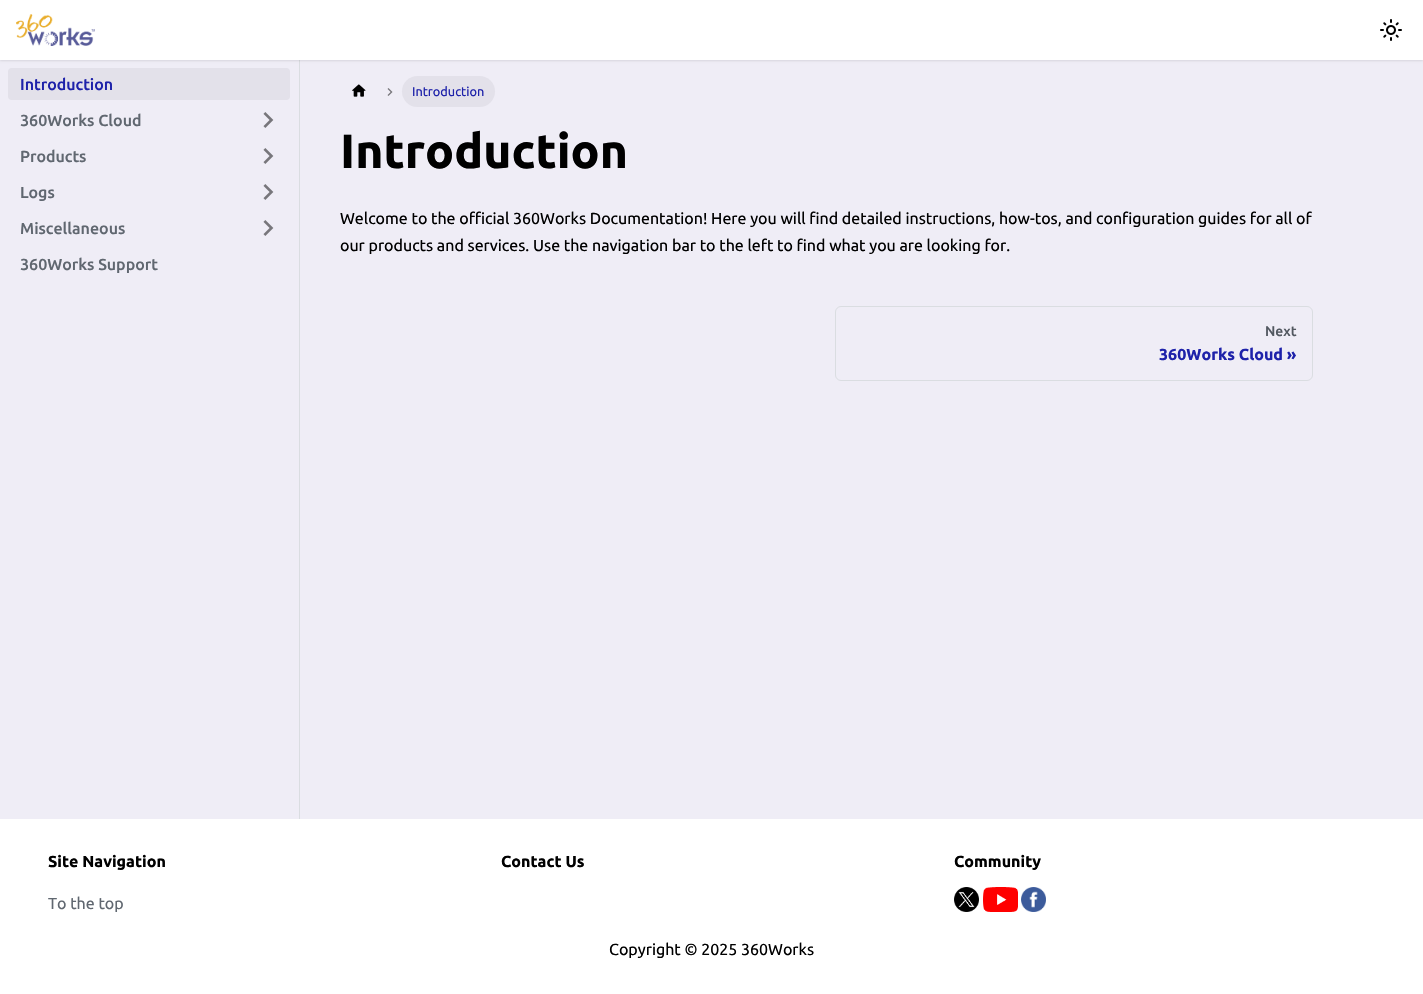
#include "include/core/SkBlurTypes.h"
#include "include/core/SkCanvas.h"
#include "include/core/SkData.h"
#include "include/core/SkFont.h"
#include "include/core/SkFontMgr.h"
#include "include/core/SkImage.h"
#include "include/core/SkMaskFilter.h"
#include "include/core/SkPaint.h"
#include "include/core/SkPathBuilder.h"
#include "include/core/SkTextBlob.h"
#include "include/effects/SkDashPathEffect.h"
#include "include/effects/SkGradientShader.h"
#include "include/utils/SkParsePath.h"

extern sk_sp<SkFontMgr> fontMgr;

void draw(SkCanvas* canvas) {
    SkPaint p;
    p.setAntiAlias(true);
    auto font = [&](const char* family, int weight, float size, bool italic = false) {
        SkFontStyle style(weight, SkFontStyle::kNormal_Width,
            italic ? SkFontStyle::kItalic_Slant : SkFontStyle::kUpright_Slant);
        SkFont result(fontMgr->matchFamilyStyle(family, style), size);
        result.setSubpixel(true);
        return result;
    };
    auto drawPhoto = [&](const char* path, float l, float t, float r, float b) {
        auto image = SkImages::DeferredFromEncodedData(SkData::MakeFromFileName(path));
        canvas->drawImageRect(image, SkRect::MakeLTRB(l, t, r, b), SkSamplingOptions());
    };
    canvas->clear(0xFFEFEDF6);
    p.setColor(0xFFDADDE1);
    canvas->drawRect(SkRect::MakeLTRB(299, 60, 300, 819), p);
    p.setColor(0x1A000000);
    p.setMaskFilter(SkMaskFilter::MakeBlur(kNormal_SkBlurStyle, 1));
    canvas->drawRect(SkRect::MakeLTRB(0, 1, 1423, 61), p);
    p.setMaskFilter(nullptr);
    p.setColor(0xFFFFFFFF);
    canvas->drawRect(SkRect::MakeLTRB(0, 0, 1423, 60), p);
    drawPhoto("media/1.png", 16, 14, 95, 46);
    drawPhoto("media/2.png", 1380, 19, 1402, 41);
    p.setColor(0xFFE3E1EA);
    canvas->drawRoundRect(SkRect::MakeLTRB(8, 68, 290, 100), 4, 4, p);
    auto font1 = font("Ubuntu", 500, 16);
    p.setColor(0xFF1E22AA);
    canvas->drawString("Introduction", 20, 90, font1, p);
    p.setColor(0xFF606770);
    canvas->drawString("360Works Cloud", 20, 126, font1, p);
    drawPhoto("media/3.png", 263, 112, 274, 128);
    canvas->drawString("Products", 20, 162, font1, p);
    drawPhoto("media/3.png", 263, 148, 274, 164);
    canvas->drawString("Logs", 20, 198, font1, p);
    drawPhoto("media/3.png", 263, 184, 274, 200);
    canvas->drawString("Miscellaneous", 20, 234, font1, p);
    drawPhoto("media/3.png", 263, 220, 274, 236);
    canvas->drawString("360Works Support", 20, 270, font1, p);
    drawPhoto("media/4.png", 352, 84, 366, 97);
    drawPhoto("media/5.png", 387, 88, 393, 96);
    p.setColor(0xFFE3E1EA);
    canvas->drawRoundRect(SkRect::MakeLTRB(402, 76, 495, 107), 15.5f, 15.5f, p);
    auto font2 = font("Ubuntu", 400, 12.75f);
    p.setColor(0xFF1E22AA);
    canvas->drawString("Introduction", 412, 96, font2, p);
    auto font3 = font("Ubuntu", 700, 48);
    p.setColor(0xFF000000);
    canvas->drawString("Introduction", 340, 168, font3, p);
    auto font4 = font("Ubuntu", 400, 16);
    canvas->drawString("Welcome to the official 360Works Documentation! Here you will find detailed instructions, how-tos, and configuration guides for all of", 340, 224, font4, p);
    canvas->drawString("our products and services. Use the navigation bar to the left to find what you are looking for.", 340, 251, font4, p);
    p.setStyle(SkPaint::kStroke_Style);
    p.setStrokeWidth(1);
    p.setColor(0xFFDADDE1);
    canvas->drawRoundRect(SkRect::MakeLTRB(835.5f, 306.5f, 1312.5f, 380.5f), 5.5f, 5.5f, p);
    auto font5 = font("Ubuntu", 500, 14);
    p.setStyle(SkPaint::kFill_Style);
    p.setColor(0xFF525860);
    canvas->drawString("Next", 1265, 336, font5, p);
    auto font6 = font("Ubuntu", 700, 16);
    p.setColor(0xFF1E22AA);
    canvas->drawString("360Works Cloud »", 1159, 360, font6, p);
    p.setColor(0xFFFFFFFF);
    canvas->drawRect(SkRect::MakeLTRB(0, 819, 1423, 994), p);
    p.setColor(0xFF000000);
    canvas->drawString("Site Navigation", 48, 867, font6, p);
    p.setColor(0xFF606770);
    canvas->drawString("To the top", 48, 909, font4, p);
    p.setColor(0xFF000000);
    canvas->drawString("Contact Us", 501, 867, font6, p);
    canvas->drawString("Community", 954, 867, font6, p);
    drawPhoto("media/6.png", 954, 887, 979, 912);
    drawPhoto("media/7.png", 983, 887, 1018, 912);
    drawPhoto("media/8.png", 1021, 887, 1046, 912);
    canvas->drawString("Copyright © 2025 360Works", 609, 955, font4, p);
}
